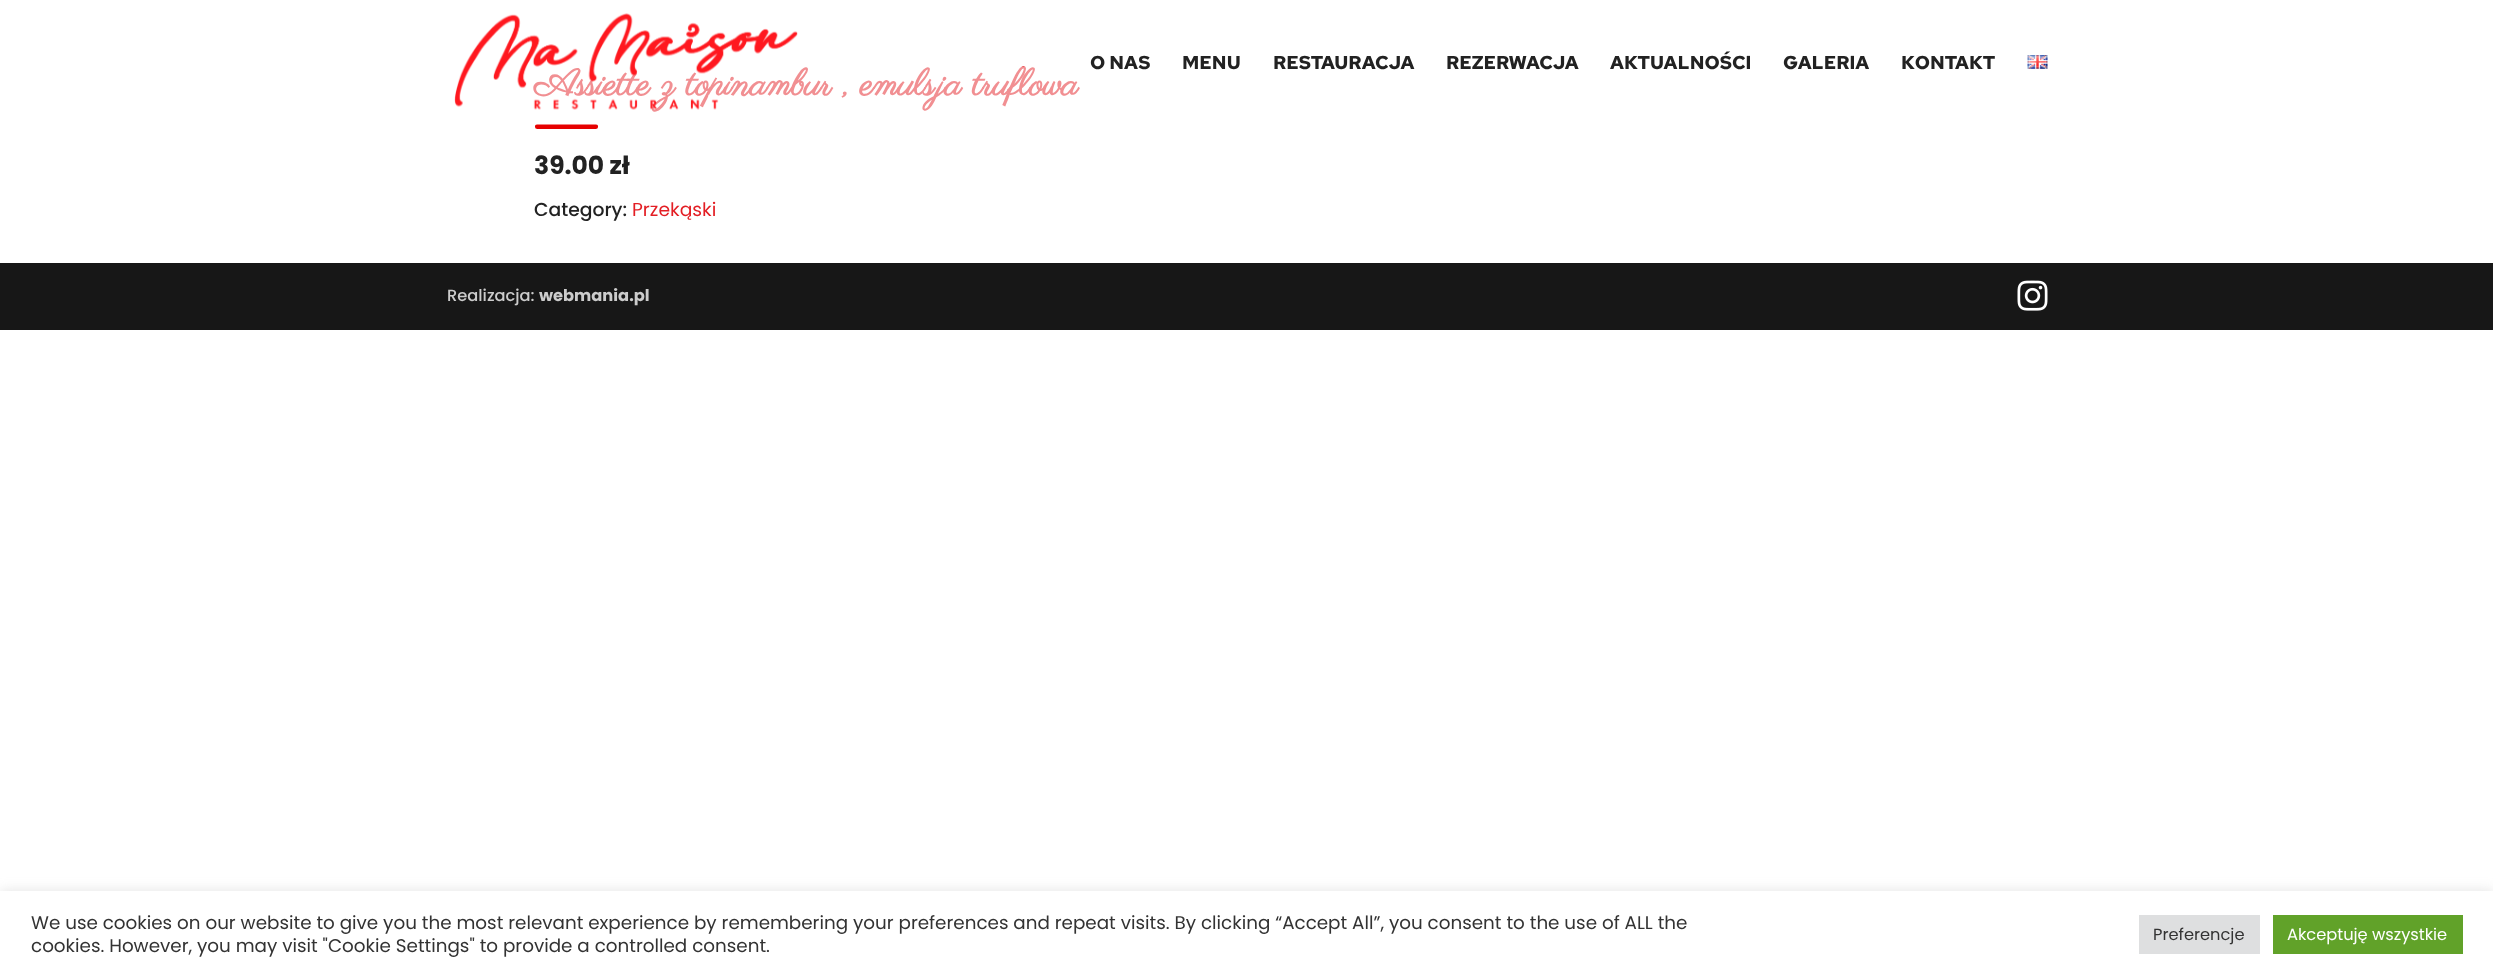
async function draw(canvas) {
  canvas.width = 2493;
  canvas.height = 977;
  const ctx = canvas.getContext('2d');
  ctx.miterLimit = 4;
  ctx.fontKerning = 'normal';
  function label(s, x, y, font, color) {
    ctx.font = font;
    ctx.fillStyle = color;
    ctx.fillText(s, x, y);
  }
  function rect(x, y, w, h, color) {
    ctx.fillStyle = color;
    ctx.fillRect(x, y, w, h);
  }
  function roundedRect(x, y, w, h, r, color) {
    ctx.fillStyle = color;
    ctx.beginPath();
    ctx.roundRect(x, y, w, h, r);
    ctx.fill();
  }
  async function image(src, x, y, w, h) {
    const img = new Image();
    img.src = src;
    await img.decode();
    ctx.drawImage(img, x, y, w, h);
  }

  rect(0, 0, 2493, 977, '#fff');
  label('Assiette z topinambur , emulsja truflowa', 534, 95, 'bold 37.5px Parisienne', '#e31e24');
  roundedRect(535, 124, 63, 5, 2.5, '#e60000');
  rect(533, 67, 547, 58, '#ffffff80');
  await image('assets/img1.png', 454, 13, 344, 97);
  label('O NAS', 1090, 69, 'bold 18.75px Red Hat Text', '#222');
  label('MENU', 1182, 69, 'bold 18.75px Red Hat Text', '#222');
  label('RESTAURACJA', 1273, 69, 'bold 18.75px Red Hat Text', '#222');
  label('REZERWACJA', 1446, 69, 'bold 18.75px Red Hat Text', '#222');
  label('AKTUALNOŚCI', 1610, 69, 'bold 18.75px Red Hat Text', '#222');
  label('GALERIA', 1783, 69, 'bold 18.75px Red Hat Text', '#222');
  label('KONTAKT', 1901, 69, 'bold 18.75px Red Hat Text', '#222');
  await image('assets/img2.png', 2027, 55, 21, 14);
  label('39.00 zł', 534, 174, 'bold 25px Poppins', '#222');
  label('Category:', 534, 216, '500 18.75px Poppins', '#222');
  label('Przekąski', 632, 216, '18.75px Poppins', '#e31e24');
  rect(0, 263, 2493, 67, '#171717');
  label('Realizacja:', 447, 301, '500 16.25px Poppins', '#ccc');
  label('webmania.pl', 539, 301, 'bold 16.25px Poppins', '#ccc');
  await image('assets/img3.png', 2017, 280, 31, 31);
  ctx.fillStyle = '#acabab4d';
  ctx.filter = 'blur(6px)';
  ctx.beginPath();
  ctx.rect(0, 890, 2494, 86);
  ctx.fill();
  ctx.filter = 'none';
  rect(0, 891, 2493, 86, '#fff');
  label('We use cookies on our website to give you the most relevant experience by remembering your preferences and repeat visits. By clicking “Accept All”, you consent to the use of ALL the', 31, 929, '18.33px Poppins', '#333');
  label('cookies. However, you may visit "Cookie Settings" to provide a controlled consent.', 31, 952, '18.33px Poppins', '#333');
  rect(2139, 915, 121, 39, '#dedfe0');
  label('Preferencje', 2153, 940, '16.25px Poppins', '#333');
  rect(2273, 915, 190, 39, '#61a229');
  label('Akceptuję wszystkie', 2287, 940, '16.25px Poppins', '#fff');
}

draw(document.querySelector('canvas'));
